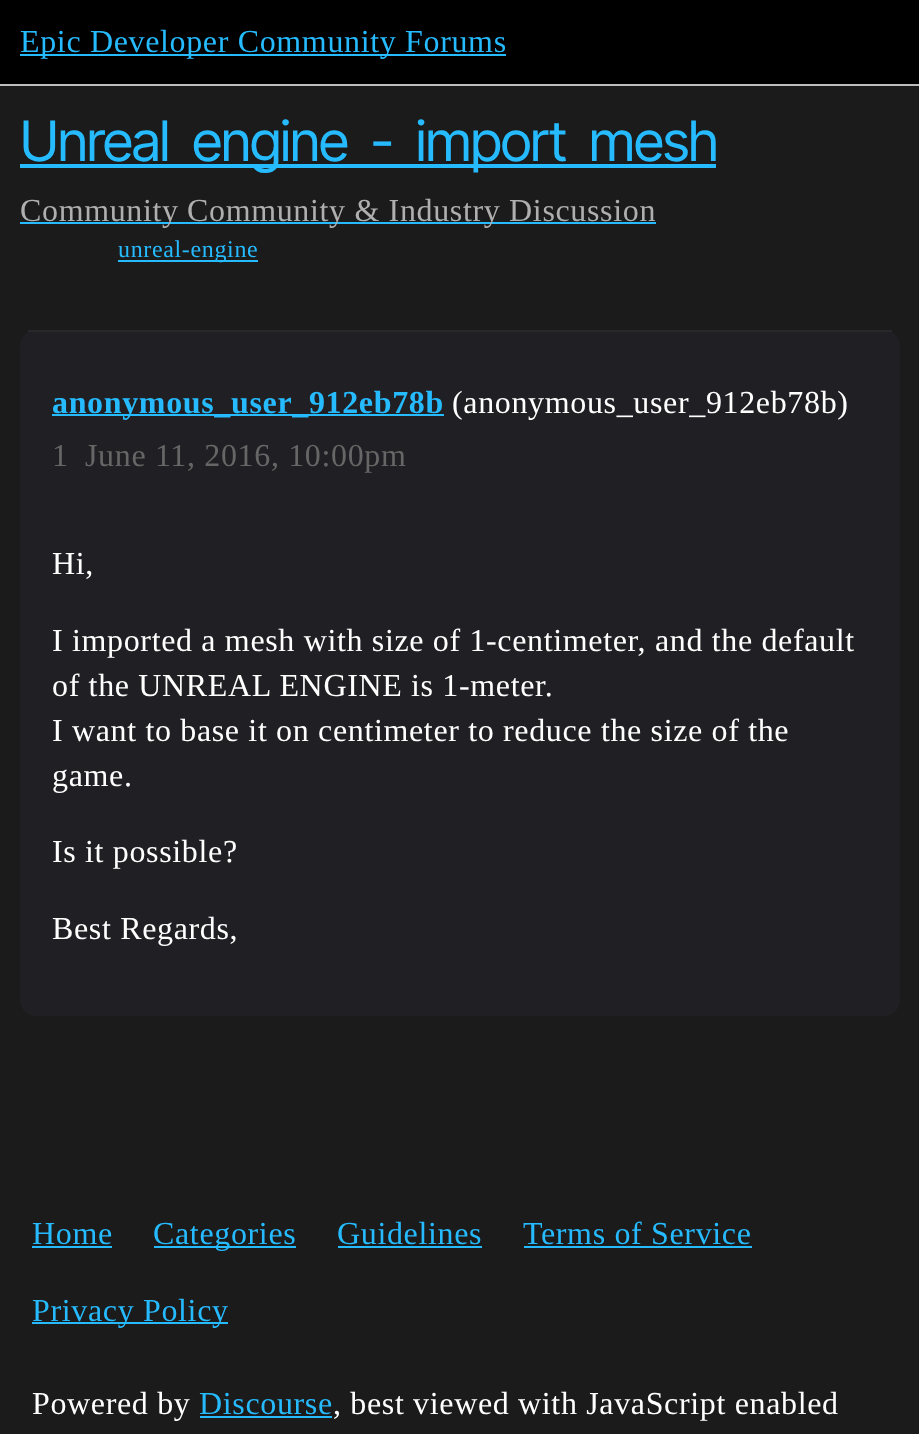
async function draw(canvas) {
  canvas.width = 919;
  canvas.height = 1434;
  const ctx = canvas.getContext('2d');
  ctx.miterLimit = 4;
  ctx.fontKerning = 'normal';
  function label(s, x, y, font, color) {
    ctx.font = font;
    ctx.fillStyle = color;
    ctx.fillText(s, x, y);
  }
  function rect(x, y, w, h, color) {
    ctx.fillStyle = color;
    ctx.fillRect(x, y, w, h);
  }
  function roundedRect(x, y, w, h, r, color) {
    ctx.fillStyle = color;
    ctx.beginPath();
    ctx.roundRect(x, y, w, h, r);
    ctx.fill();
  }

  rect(0, 0, 919, 1434, '#1b1b1b');
  rect(0, 0, 919, 84, '#000');
  rect(0, 84, 919, 2, '#bdbdbd');
  rect(20, 54, 486, 2, '#26bbff');
  ctx.letterSpacing = '0.65px';
  label('Epic Developer Community Forums', 20, 52, '32px Liberation Serif', '#26bbff');
  rect(20, 164, 696, 4, '#26bbff');
  ctx.letterSpacing = '-1px';
  ctx.wordSpacing = '11px';
  label('Unreal engine - import mesh', 20, 161, '55.75px Inter Tight', '#26bbff');
  rect(20, 222, 636, 2, '#26bbff');
  ctx.letterSpacing = '0.65px';
  ctx.wordSpacing = '0px';
  label('Community', 20, 221, '32px Liberation Serif', '#afafb0');
  label('Community & Industry Discussion', 187, 221, '32px Liberation Serif', '#afafb0');
  rect(118, 260, 140, 2, '#26bbff');
  label('unreal-engine', 118, 257, '24px Liberation Serif', '#26bbff');
  roundedRect(20, 330, 880, 686, 16, '#202024');
  rect(28, 330, 864, 2, '#28282c');
  rect(52, 414, 392, 2, '#26bbff');
  label('anonymous_user_912eb78b', 52, 413, 'bold 32px Liberation Serif', '#26bbff');
  label('(anonymous_user_912eb78b)', 452, 413, '32px Liberation Serif', '#fff');
  label('1', 52, 466, '32px Liberation Serif', '#666');
  label('June 11, 2016, 10:00pm', 85, 466, '32px Liberation Serif', '#666');
  label('Hi,', 52, 574, '32px Liberation Serif', '#fff');
  label('I imported a mesh with size of 1-centimeter, and the default', 52, 651, '32px Liberation Serif', '#fff');
  label('of the UNREAL ENGINE is 1-meter.', 52, 696, '32px Liberation Serif', '#fff');
  label('I want to base it on centimeter to reduce the size of the', 52, 741, '32px Liberation Serif', '#fff');
  label('game.', 52, 786, '32px Liberation Serif', '#fff');
  label('Is it possible?', 52, 862, '32px Liberation Serif', '#fff');
  label('Best Regards,', 52, 939, '32px Liberation Serif', '#fff');
  label('Home', 32, 1244, '32px Liberation Serif', '#26bbff');
  rect(32, 1246, 80, 2, '#26bbff');
  rect(154, 1246, 142, 2, '#26bbff');
  label('Categories', 153, 1244, '32px Liberation Serif', '#26bbff');
  label('Guidelines', 337, 1244, '32px Liberation Serif', '#26bbff');
  rect(338, 1246, 144, 2, '#26bbff');
  label('Terms of Service', 523, 1244, '32px Liberation Serif', '#26bbff');
  rect(524, 1246, 228, 2, '#26bbff');
  rect(32, 1322, 196, 2, '#26bbff');
  label('Privacy Policy', 32, 1321, '32px Liberation Serif', '#26bbff');
  label('Powered by', 32, 1414, '32px Liberation Serif', '#fff');
  label('Discourse', 199, 1414, '32px Liberation Serif', '#26bbff');
  rect(200, 1416, 132, 2, '#26bbff');
  label(', best viewed with JavaScript enabled', 333, 1414, '32px Liberation Serif', '#fff');
}

draw(document.querySelector('canvas'));
